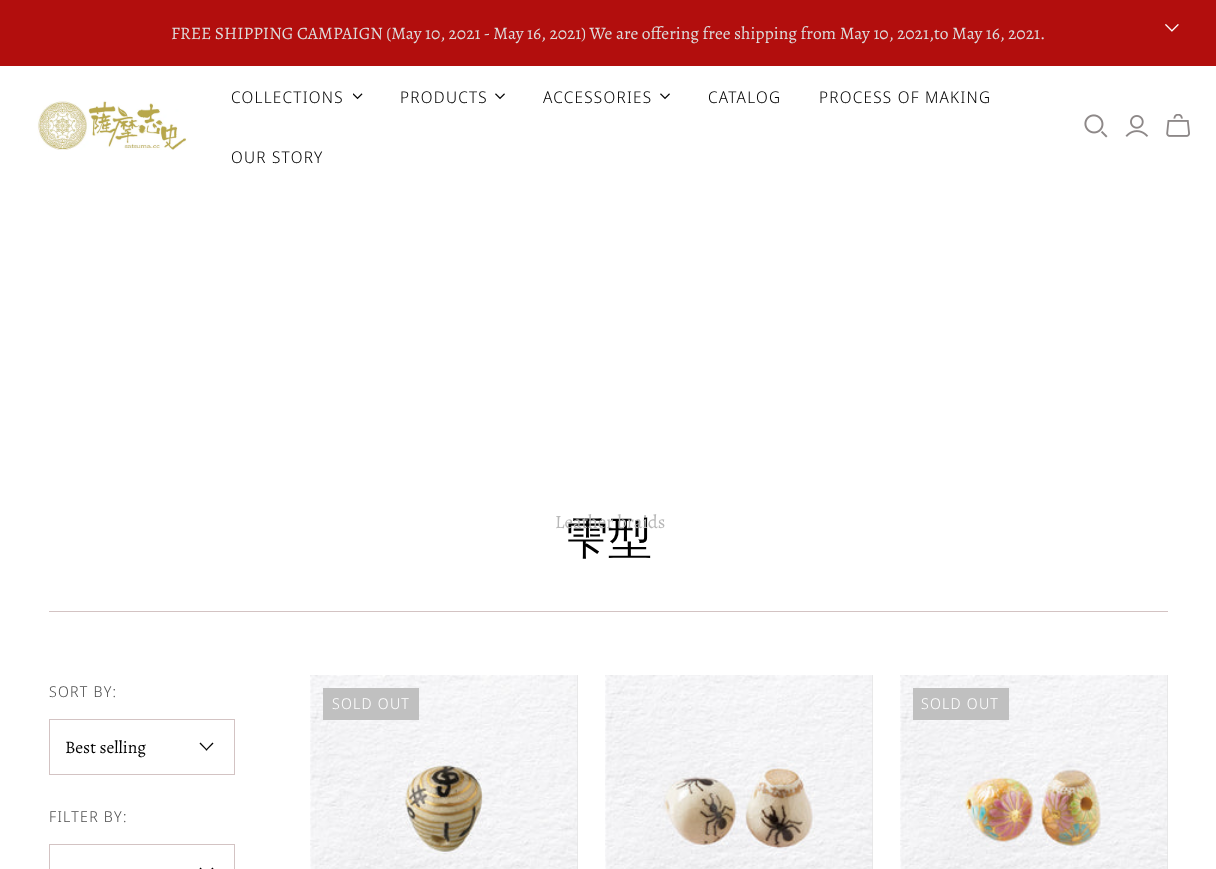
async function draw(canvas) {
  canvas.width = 1216;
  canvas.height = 869;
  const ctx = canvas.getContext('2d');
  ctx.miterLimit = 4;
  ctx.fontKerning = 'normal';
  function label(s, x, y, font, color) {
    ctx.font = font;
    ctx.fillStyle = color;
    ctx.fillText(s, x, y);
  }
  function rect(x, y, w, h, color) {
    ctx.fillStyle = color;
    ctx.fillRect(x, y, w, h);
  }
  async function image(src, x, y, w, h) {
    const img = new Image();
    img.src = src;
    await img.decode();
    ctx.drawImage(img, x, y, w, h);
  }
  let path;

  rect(0, 0, 1216, 869, '#fff');
  rect(0, 0, 1216, 66, '#b20e0d');
  label('FREE SHIPPING CAMPAIGN (May 10, 2021 - May 16, 2021) We are offering free shipping from May 10, 2021,to May 16, 2021.', 171, 39, '17.5px Alegreya', '#ddd');
  await image('assets/img1.png', 1165, 24, 14, 8);
  await image('assets/img2.png', 37, 100, 150, 50);
  ctx.letterSpacing = '1.25px';
  label('COLLECTIONS', 231, 103, '300 16.25px Noto Sans Display', '#000');
  await image('assets/img3.png', 353, 93, 10, 7);
  label('PRODUCTS', 400, 103, '300 16.25px Noto Sans Display', '#000');
  await image('assets/img4.png', 495, 93, 10, 7);
  label('ACCESSORIES', 543, 103, '300 16.25px Noto Sans Display', '#000');
  await image('assets/img4.png', 660, 93, 10, 7);
  ctx.letterSpacing = '0px';
  label('雫型', 564, 553, '500 44px WenQuanYi Zen Hei', '#000');
  label('Leather braids', 555, 528, '18.75px Alegreya', '#b8b8b8');
  ctx.letterSpacing = '1.25px';
  label('CATALOG', 708, 103, '300 16.25px Noto Sans Display', '#000');
  label('PROCESS OF MAKING', 819, 103, '300 16.25px Noto Sans Display', '#000');
  label('OUR STORY', 231, 163, '300 16.25px Noto Sans Display', '#000');
  await image('assets/img5.png', 1084, 114, 24, 24);
  await image('assets/img6.png', 1125, 115, 24, 22);
  await image('assets/img7.png', 1166, 114, 24, 23);
  rect(49, 611, 1119, 1, '#d3c3c3');
  label('SORT BY:', 49, 697, '300 15px Noto Sans Display', '#4e4e4e');
  ctx.strokeStyle = '#d3c3c3';
  ctx.strokeRect(49.5, 719.5, 185, 55);
  ctx.letterSpacing = '0px';
  label('Best selling', 65, 753, '17.5px Alegreya', '#000');
  ctx.fillStyle = '#030303';
  path = new Path2D('M205.5 750L212.5 742.5L213.5 743.5L206.5 750.5Z');
  ctx.fill(path);
  path = new Path2D('M199.5 743.5L200.5 742.5L207.5 750L206.5 750.5Z');
  ctx.fill(path);
  ctx.letterSpacing = '1.25px';
  label('FILTER BY:', 49, 822, '300 15px Noto Sans Display', '#4e4e4e');
  ctx.strokeRect(49.5, 844.5, 185, 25);
  ctx.fillStyle = '#030303';
  path = new Path2D('M205.5 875L212.5 867.5L213.5 868.5L206.5 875.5ZM199.5 868.5L200.5 867.5L207.5 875L206.5 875.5Z');
  ctx.fill(path);
  rect(577, 675, 1, 194, '#e5e5e5');
  await image('assets/img8.png', 310, 675, 268, 194);
  rect(323, 688, 96, 32, '#c0c0c0');
  label('SOLD OUT', 332, 709, '300 15px Noto Sans Display', '#fff');
  rect(872, 675, 1, 194, '#e5e5e5');
  await image('assets/img9.png', 605, 675, 268, 194);
  rect(1167, 675, 1, 194, '#e5e5e5');
  await image('assets/img10.png', 900, 675, 268, 194);
  rect(913, 688, 96, 32, '#c0c0c0');
  label('SOLD OUT', 921, 709, '300 15px Noto Sans Display', '#fff');
}

draw(document.querySelector('canvas'));
